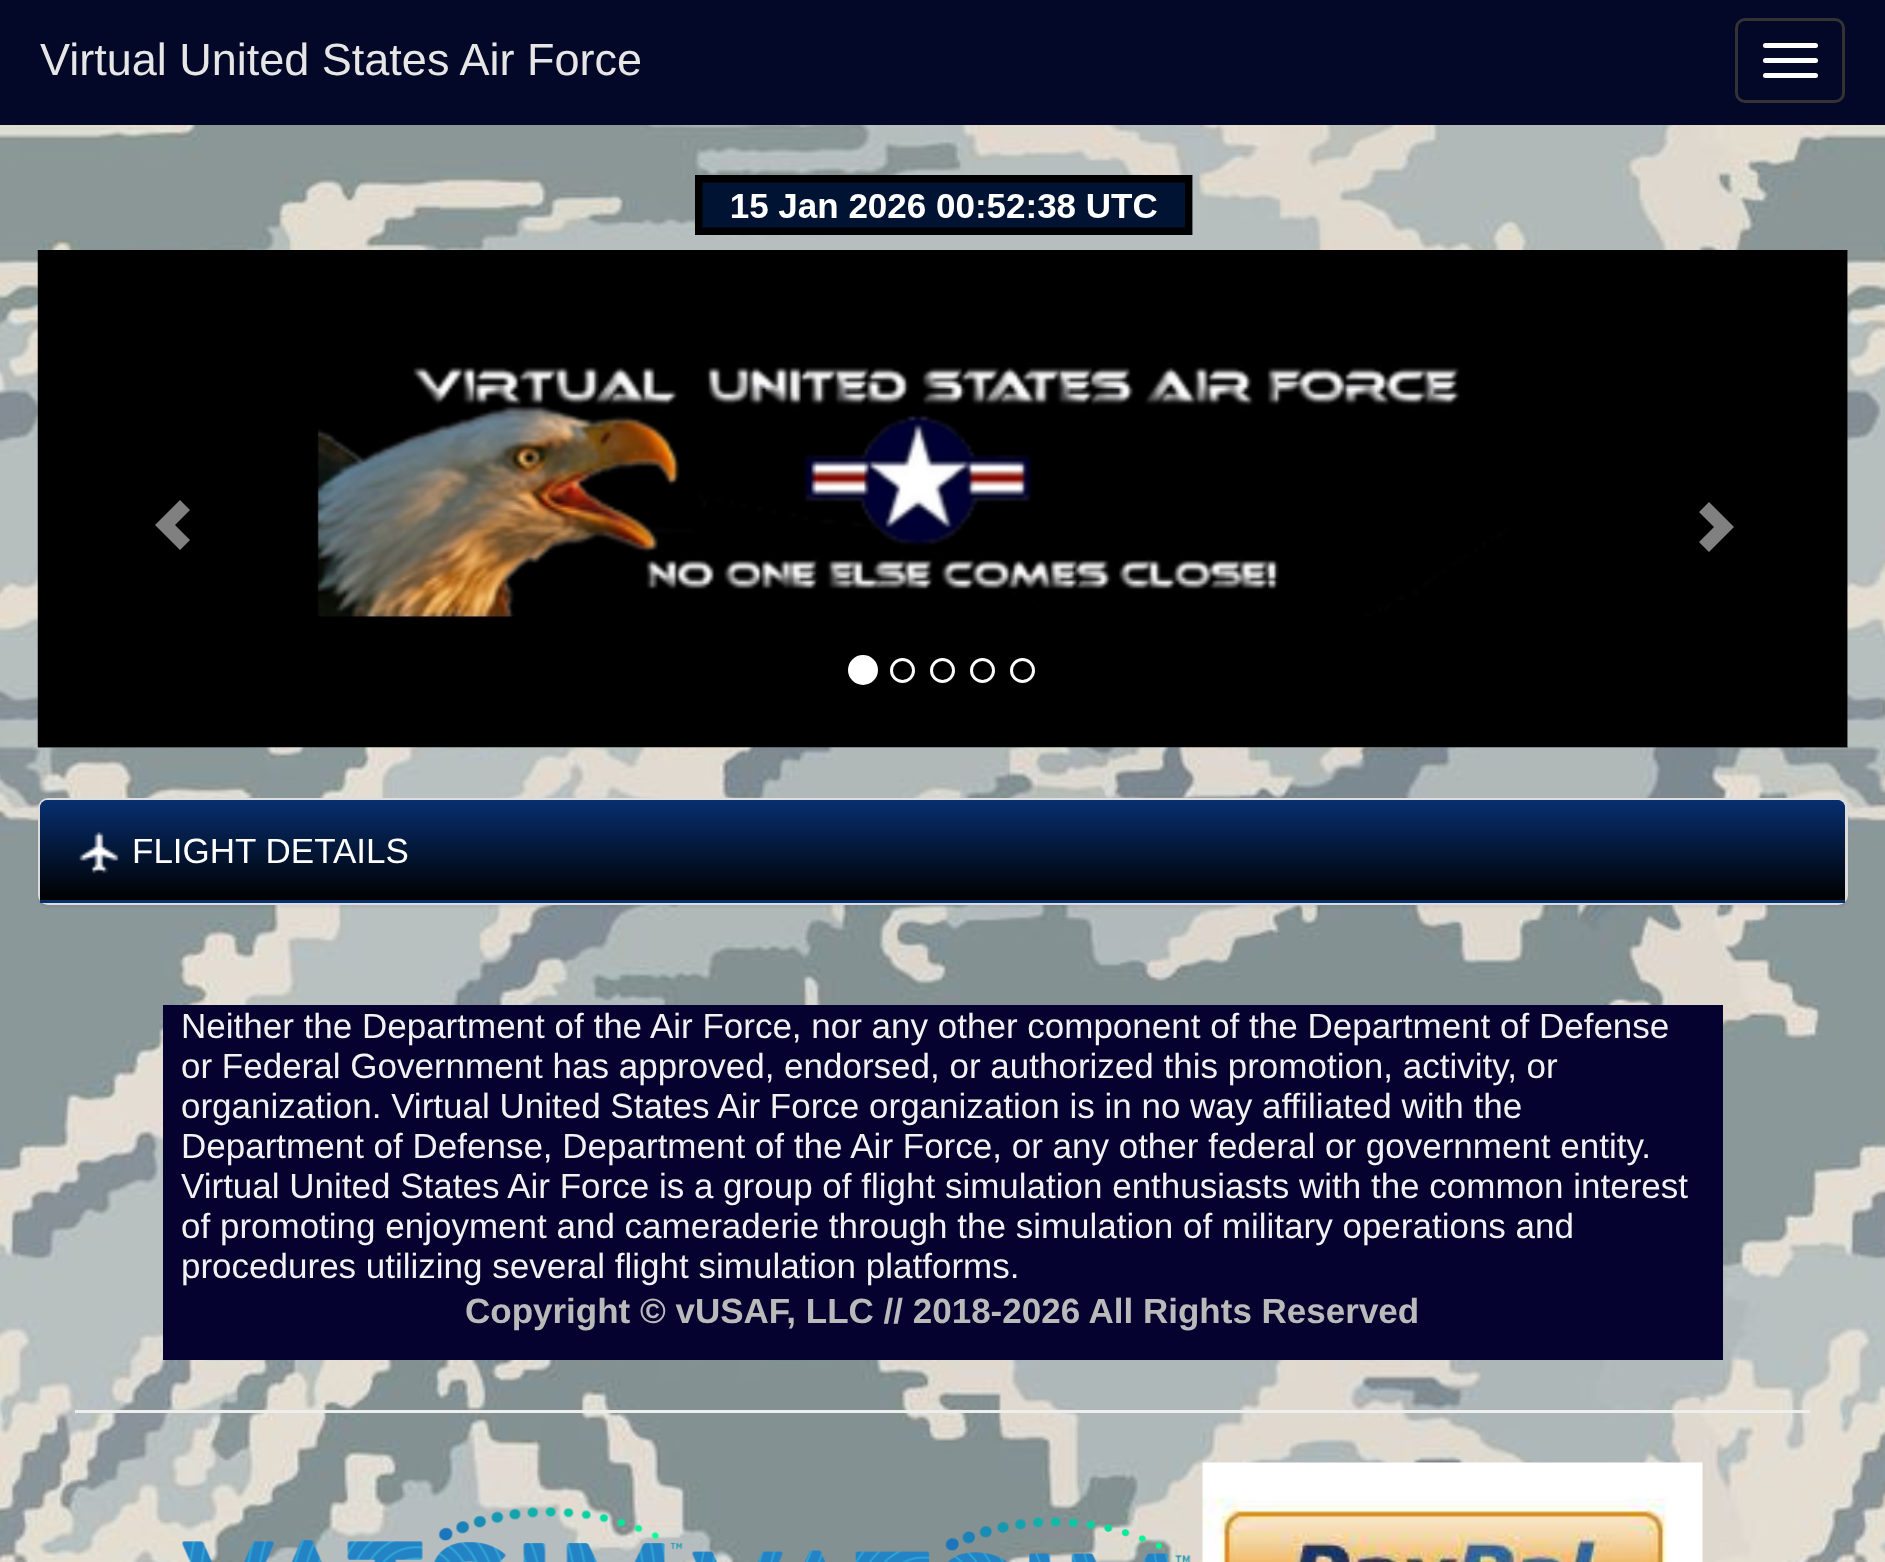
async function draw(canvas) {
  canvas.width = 1885;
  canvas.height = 1562;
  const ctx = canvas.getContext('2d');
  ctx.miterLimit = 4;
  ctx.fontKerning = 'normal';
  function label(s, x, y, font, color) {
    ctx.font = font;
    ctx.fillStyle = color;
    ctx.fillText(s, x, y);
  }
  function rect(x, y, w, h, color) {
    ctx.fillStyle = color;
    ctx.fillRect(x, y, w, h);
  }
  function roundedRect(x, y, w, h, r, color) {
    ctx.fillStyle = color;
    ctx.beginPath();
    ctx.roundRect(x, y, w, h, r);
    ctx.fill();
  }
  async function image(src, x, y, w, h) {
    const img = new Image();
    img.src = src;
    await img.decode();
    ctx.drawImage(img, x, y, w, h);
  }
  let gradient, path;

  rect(0, 0, 1885, 1562, '#fff');
  await image('assets/img1.png', 0, 125, 1885, 1437);
  rect(0, 0, 1885, 125, '#030828');
  label('Virtual United States Air Force', 40, 75, '45px Liberation Sans', '#e6e6e6');
  ctx.beginPath();
  ctx.roundRect(1736.5, 19.5, 107, 82, 8.5);
  ctx.strokeStyle = '#333';
  ctx.lineWidth = 3;
  ctx.stroke();
  roundedRect(1763, 43, 55, 5, 2.5, '#fff');
  roundedRect(1763, 58, 55, 5, 2.5, '#fff');
  roundedRect(1763, 73, 55, 5, 2.5, '#fff');
  await image('assets/img2.png', 695, 175, 498, 60);
  await image('assets/img3.png', 37, 250, 1811, 498);
  gradient = ctx.createLinearGradient(37, 499, 310, 499);
  gradient.addColorStop(0, '#00000040');
  gradient.addColorStop(1, '#00000000');
  ctx.fillStyle = gradient;
  ctx.fillRect(38, 747, 248, 1);
  ctx.fillStyle = '#808080';
  path = new Path2D('M155 525L180 550L190 540L175 525L190 510L180 500Z');
  ctx.fill(path);
  ctx.fillStyle = '#fff';
  ctx.beginPath();
  ctx.arc(863, 670, 13.5, 0, 2 * Math.PI);
  ctx.fill();
  ctx.strokeStyle = '#fff';
  ctx.stroke();
  ctx.beginPath();
  ctx.arc(902.5, 670.5, 11, 0, 2 * Math.PI);
  ctx.stroke();
  ctx.beginPath();
  ctx.arc(942.5, 670.5, 11, 0, 2 * Math.PI);
  ctx.stroke();
  ctx.beginPath();
  ctx.arc(982.5, 670.5, 11, 0, 2 * Math.PI);
  ctx.stroke();
  ctx.beginPath();
  ctx.arc(1022.5, 670.5, 11, 0, 2 * Math.PI);
  ctx.stroke();
  gradient = ctx.createLinearGradient(1575, 499, 1848, 499);
  gradient.addColorStop(0, '#00000000');
  gradient.addColorStop(1, '#00000040');
  ctx.fillStyle = gradient;
  ctx.fillRect(1599, 250, 249, 498);
  ctx.fillStyle = '#808080';
  path = new Path2D('M1699 542L1714 527L1699 512L1709 502L1734 527L1709 552Z');
  ctx.fill(path);
  ctx.fillStyle = '#0000000d';
  ctx.filter = 'blur(1px)';
  ctx.beginPath();
  ctx.roundRect(38, 800, 1810, 108, 10);
  ctx.fill();
  ctx.filter = 'none';
  ctx.beginPath();
  ctx.roundRect(39.5, 799.5, 1807, 104, 8.5);
  ctx.strokeStyle = '#ddd';
  ctx.stroke();
  ctx.fillStyle = '#072f70';
  ctx.beginPath();
  ctx.roundRect(40, 800, 1805, 103, [8, 8, 0, 0]);
  ctx.fill();
  gradient = ctx.createLinearGradient(943, 800, 943, 900);
  gradient.addColorStop(0, '#072f70');
  gradient.addColorStop(1, '#000');
  ctx.fillStyle = gradient;
  ctx.beginPath();
  ctx.roundRect(40, 800, 1805, 100, [8, 8, 0, 0]);
  ctx.fill();
  await image('assets/img4.png', 79, 831, 40, 43);
  label('FLIGHT DETAILS', 132, 863, '35px Liberation Sans', '#fff');
  rect(163, 1005, 1560, 355, '#060230');
  label('Neither the Department of the Air Force, nor any other component of the Department of Defense', 181, 1038, '35px Liberation Sans', '#f2f2f2');
  label('or Federal Government has approved, endorsed, or authorized this promotion, activity, or', 181, 1078, '35px Liberation Sans', '#f2f2f2');
  label('organization. Virtual United States Air Force organization is in no way affiliated with the', 181, 1118, '35px Liberation Sans', '#f2f2f2');
  label('Department of Defense, Department of the Air Force, or any other federal or government entity.', 181, 1158, '35px Liberation Sans', '#f2f2f2');
  label('Virtual United States Air Force is a group of flight simulation enthusiasts with the common interest', 181, 1198, '35px Liberation Sans', '#f2f2f2');
  label('of promoting enjoyment and cameraderie through the simulation of military operations and', 181, 1238, '35px Liberation Sans', '#f2f2f2');
  label('procedures utilizing several flight simulation platforms.', 181, 1278, '35px Liberation Sans', '#f2f2f2');
  label('Copyright © vUSAF, LLC // 2018-2026 All Rights Reserved', 465, 1323, 'bold 35px Liberation Sans', '#bababa');
  rect(75, 1410, 1735, 3, '#eee');
  await image('assets/img5.png', 182, 1507, 501, 55);
  await image('assets/img6.png', 692, 1517, 499, 45);
  await image('assets/img7.png', 1202, 1462, 501, 100);
}

draw(document.querySelector('canvas'));
